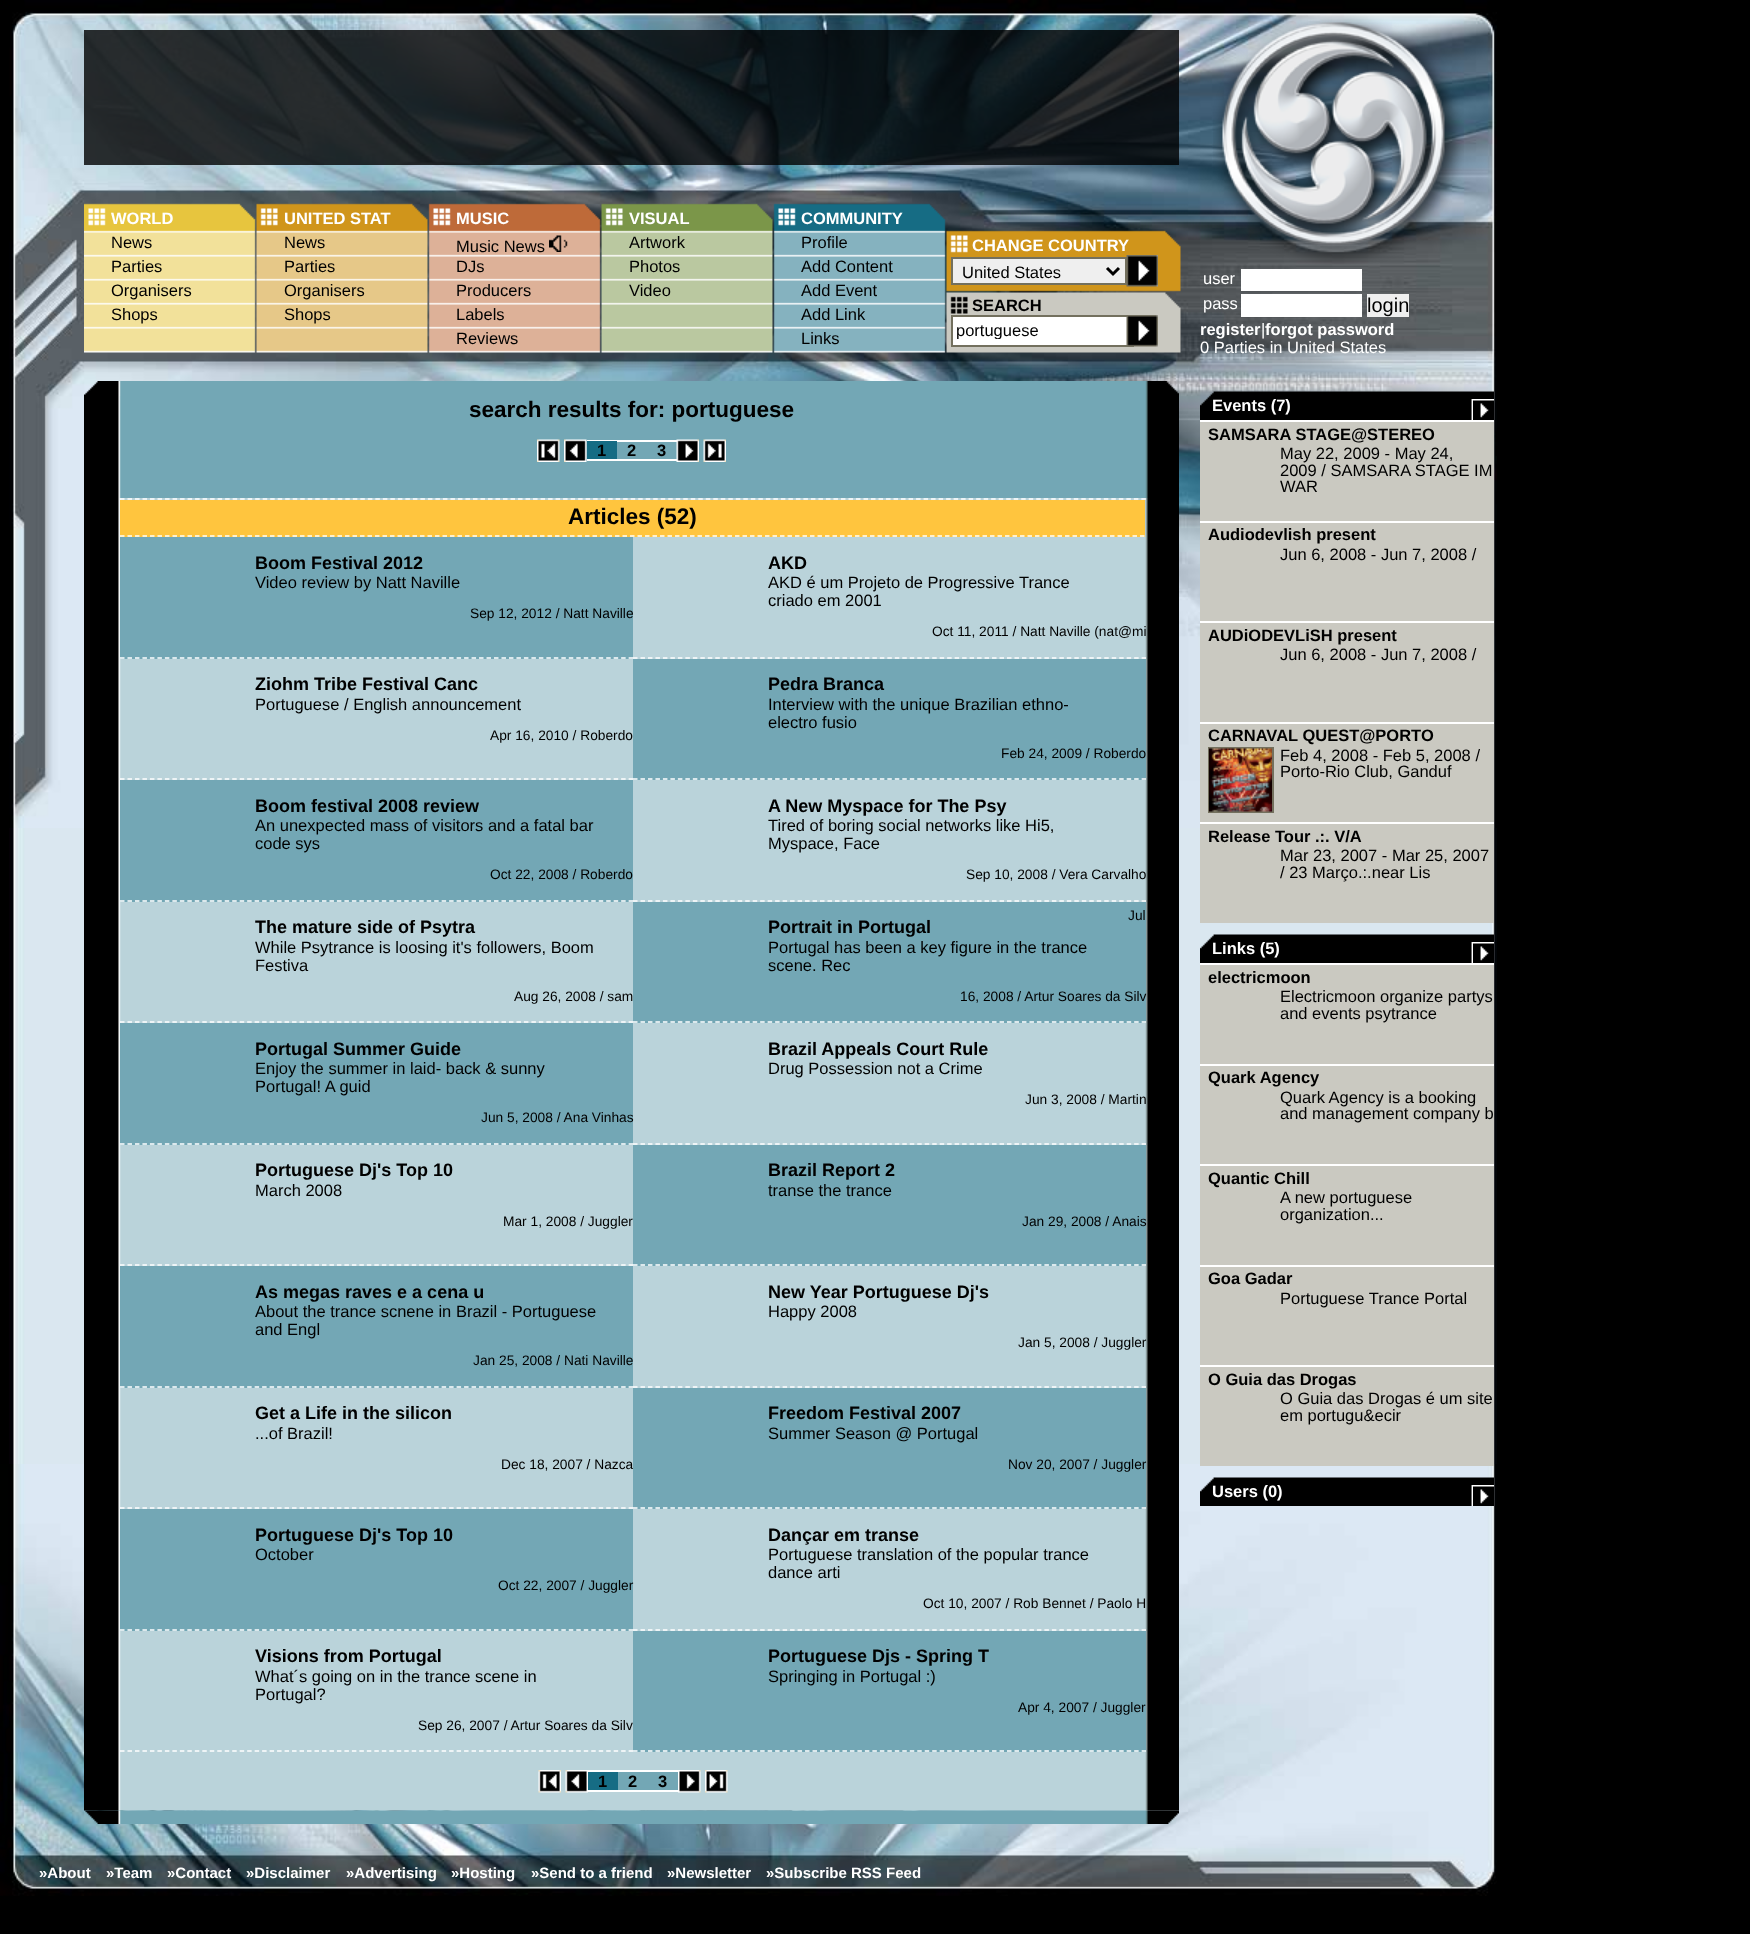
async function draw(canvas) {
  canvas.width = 1750;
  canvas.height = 1934;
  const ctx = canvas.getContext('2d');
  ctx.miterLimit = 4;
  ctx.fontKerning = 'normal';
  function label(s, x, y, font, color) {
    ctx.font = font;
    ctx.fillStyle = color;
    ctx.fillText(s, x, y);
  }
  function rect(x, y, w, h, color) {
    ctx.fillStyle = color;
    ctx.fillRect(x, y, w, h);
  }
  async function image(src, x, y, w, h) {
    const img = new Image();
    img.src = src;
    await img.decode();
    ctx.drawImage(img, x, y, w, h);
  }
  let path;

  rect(0, 0, 1750, 1934, '#000');
  await image('assets/img1.png', 9, 828, 1488, 636);
  await image('assets/img2.png', 9, 0, 1488, 828);
  rect(84, 30, 1095, 135, '#000000cc');
  await image('assets/img3.png', 1213, 14, 251, 251);
  await image('assets/img4.png', 84, 203, 1097, 150);
  label('WORLD', 111, 224, 'bold 16.5px Liberation Sans', '#fff');
  label('News', 111, 248, '16.5px Liberation Sans', '#000');
  label('Parties', 111, 272, '16.5px Liberation Sans', '#000');
  label('Organisers', 111, 296, '16.5px Liberation Sans', '#000');
  label('Shops', 111, 320, '16.5px Liberation Sans', '#000');
  label('UNITED STAT', 284, 224, 'bold 16.5px Liberation Sans', '#fff');
  label('News', 284, 248, '16.5px Liberation Sans', '#000');
  label('Parties', 284, 272, '16.5px Liberation Sans', '#000');
  label('Organisers', 284, 296, '16.5px Liberation Sans', '#000');
  label('Shops', 284, 320, '16.5px Liberation Sans', '#000');
  label('MUSIC', 456, 224, 'bold 16.5px Liberation Sans', '#fff');
  label('Music News', 456, 252, '16.5px Liberation Sans', '#000');
  await image('assets/img5.png', 549, 235, 19, 17);
  label('DJs', 456, 272, '16.5px Liberation Sans', '#000');
  label('Producers', 456, 296, '16.5px Liberation Sans', '#000');
  label('Labels', 456, 320, '16.5px Liberation Sans', '#000');
  label('Reviews', 456, 344, '16.5px Liberation Sans', '#000');
  label('VISUAL', 629, 224, 'bold 16.5px Liberation Sans', '#fff');
  label('Artwork', 629, 248, '16.5px Liberation Sans', '#000');
  label('Photos', 629, 272, '16.5px Liberation Sans', '#000');
  label('Video', 629, 296, '16.5px Liberation Sans', '#000');
  label('COMMUNITY', 801, 224, 'bold 16.5px Liberation Sans', '#fff');
  label('Profile', 801, 248, '16.5px Liberation Sans', '#000');
  label('Add Content', 801, 272, '16.5px Liberation Sans', '#000');
  label('Add Event', 801, 296, '16.5px Liberation Sans', '#000');
  label('Add Link', 801, 320, '16.5px Liberation Sans', '#000');
  label('Links', 801, 344, '16.5px Liberation Sans', '#000');
  label('CHANGE COUNTRY', 972, 251, 'bold 16.5px Liberation Sans', '#fff');
  ctx.fillStyle = '#efefef';
  ctx.beginPath();
  ctx.rect(952, 258, 174, 26);
  ctx.fill();
  ctx.strokeStyle = '#73705e';
  ctx.lineWidth = 2;
  ctx.stroke();
  path = new Path2D('M1107 268L1113 274L1119 268');
  ctx.strokeStyle = '#000';
  ctx.lineWidth = 3;
  ctx.stroke(path);
  label('United States', 962, 278, '16.5px Liberation Sans', '#000');
  await image('assets/img6.png', 1126, 255, 32, 32);
  label('SEARCH', 972, 311, 'bold 16.5px Liberation Sans', '#000');
  rect(953, 317, 174, 28, '#fff');
  ctx.strokeStyle = '#73705e';
  ctx.lineWidth = 2;
  ctx.strokeRect(952, 316, 181, 30);
  ctx.save();
  ctx.beginPath();
  ctx.rect(956, 321, 174, 18);
  ctx.clip();
  label('portuguese', 956, 336, '16.5px Liberation Sans', '#000');
  ctx.restore();
  await image('assets/img7.png', 1126, 315, 32, 32);
  label('user', 1203, 284, '16.5px Liberation Sans', '#fff');
  rect(1241, 269, 121, 22, '#fff');
  label('pass', 1203, 309, '16.5px Liberation Sans', '#fff');
  rect(1241, 294, 121, 23, '#fff');
  rect(1367, 294, 42, 23, '#efefef');
  label('login', 1367, 312, '20px Liberation Sans', '#000');
  label('register forgot password', 1200, 335, 'bold 16.5px Liberation Sans', '#fff');
  label('|', 1261, 335, '16.5px Liberation Sans', '#fff');
  label('0 Parties in United States', 1200, 353, '16.5px Liberation Sans', '#fff');
  await image('assets/img8.png', 84, 381, 1095, 15);
  await image('assets/img9.png', 84, 396, 1095, 102);
  label('search results for: portuguese', 469, 417, 'bold 22.5px Liberation Sans', '#000');
  await image('assets/img10.png', 537, 439, 23, 23);
  await image('assets/img11.png', 564, 439, 23, 23);
  rect(587, 440, 30, 1, '#fff');
  rect(587, 459, 90, 2, '#fff');
  rect(587, 441, 30, 18, '#166c84');
  label('1', 597, 456, 'bold 16.5px Liberation Sans', '#000');
  rect(617, 440, 60, 2, '#fff');
  label('2', 627, 456, 'bold 16.5px Liberation Sans', '#000');
  label('3', 657, 456, 'bold 16.5px Liberation Sans', '#000');
  await image('assets/img12.png', 676, 439, 23, 23);
  await image('assets/img13.png', 703, 439, 23, 23);
  await image('assets/img26.png', 0, 1464, 1497, 432);
  await image('assets/img14.png', 84, 498, 1095, 1313);
  path = new Path2D('M120 499H1146');
  ctx.strokeStyle = '#fff';
  ctx.lineWidth = 1.5;
  ctx.setLineDash([4.5, 3.01]);
  ctx.stroke(path);
  rect(120, 500, 1025, 37, '#ffc53e');
  path = new Path2D('M120 536H1144.5');
  ctx.setLineDash([4.5, 3]);
  ctx.stroke(path);
  label('Articles (52)', 568, 524, 'bold 22.5px Liberation Sans', '#000');
  rect(120, 537, 513, 122, '#73a7b5');
  path = new Path2D('M120 658H633');
  ctx.setLineDash([4.5, 2.98]);
  ctx.stroke(path);
  label('Boom Festival 2012', 255, 569, 'bold 18px Liberation Sans', '#000');
  label('Video review by Natt Naville', 255, 588, '16.5px Liberation Sans', '#000');
  label('Sep 12, 2012 / Natt Naville', 470, 618, '13.75px Liberation Sans', '#000');
  path = new Path2D('M633 658H1146');
  ctx.stroke(path);
  label('AKD', 768, 569, 'bold 18px Liberation Sans', '#000');
  label('AKD é um Projeto de Progressive Trance', 768, 588, '16.5px Liberation Sans', '#000');
  label('criado em 2001', 768, 606, '16.5px Liberation Sans', '#000');
  label('Oct 11, 2011 / Natt Naville (nat@mi', 932, 636, '13.75px Liberation Sans', '#000');
  path = new Path2D('M120 779H633');
  ctx.stroke(path);
  label('Ziohm Tribe Festival Canc', 255, 690, 'bold 18px Liberation Sans', '#000');
  label('Portuguese / English announcement', 255, 710, '16.5px Liberation Sans', '#000');
  label('Apr 16, 2010 / Roberdo', 490, 740, '13.75px Liberation Sans', '#000');
  rect(633, 659, 513, 121, '#73a7b5');
  path = new Path2D('M633 779H1146');
  ctx.stroke(path);
  label('Pedra Branca', 768, 690, 'bold 18px Liberation Sans', '#000');
  label('Interview with the unique Brazilian ethno-', 768, 710, '16.5px Liberation Sans', '#000');
  label('electro fusio', 768, 728, '16.5px Liberation Sans', '#000');
  label('Feb 24, 2009 / Roberdo', 1001, 758, '13.75px Liberation Sans', '#000');
  rect(120, 780, 513, 122, '#73a7b5');
  path = new Path2D('M120 901H633');
  ctx.stroke(path);
  label('Boom festival 2008 review', 255, 812, 'bold 18px Liberation Sans', '#000');
  label('An unexpected mass of visitors and a fatal bar', 255, 831, '16.5px Liberation Sans', '#000');
  label('code sys', 255, 849, '16.5px Liberation Sans', '#000');
  label('Oct 22, 2008 / Roberdo', 490, 879, '13.75px Liberation Sans', '#000');
  path = new Path2D('M633 901H1146');
  ctx.stroke(path);
  label('A New Myspace for The Psy', 768, 812, 'bold 18px Liberation Sans', '#000');
  label('Tired of boring social networks like Hi5,', 768, 831, '16.5px Liberation Sans', '#000');
  label('Myspace, Face', 768, 849, '16.5px Liberation Sans', '#000');
  label('Sep 10, 2008 / Vera Carvalho', 966, 879, '13.75px Liberation Sans', '#000');
  path = new Path2D('M120 1022H633');
  ctx.stroke(path);
  label('The mature side of Psytra', 255, 933, 'bold 18px Liberation Sans', '#000');
  label('While Psytrance is loosing it\'s followers, Boom', 255, 953, '16.5px Liberation Sans', '#000');
  label('Festiva', 255, 971, '16.5px Liberation Sans', '#000');
  label('Aug 26, 2008 / sam', 514, 1001, '13.75px Liberation Sans', '#000');
  rect(633, 902, 513, 121, '#73a7b5');
  path = new Path2D('M633 1022H1146');
  ctx.stroke(path);
  label('Jul', 1128, 920, '13.75px Liberation Sans', '#000');
  label('16, 2008 / Artur Soares da Silv', 960, 1001, '13.75px Liberation Sans', '#000');
  label('Portrait in Portugal', 768, 933, 'bold 18px Liberation Sans', '#000');
  label('Portugal has been a key figure in the trance', 768, 953, '16.5px Liberation Sans', '#000');
  label('scene. Rec', 768, 971, '16.5px Liberation Sans', '#000');
  rect(120, 1023, 513, 122, '#73a7b5');
  path = new Path2D('M120 1144H633');
  ctx.stroke(path);
  label('Portugal Summer Guide', 255, 1055, 'bold 18px Liberation Sans', '#000');
  label('Enjoy the summer in laid- back & sunny', 255, 1074, '16.5px Liberation Sans', '#000');
  label('Portugal! A guid', 255, 1092, '16.5px Liberation Sans', '#000');
  label('Jun 5, 2008 / Ana Vinhas', 481, 1122, '13.75px Liberation Sans', '#000');
  path = new Path2D('M633 1144H1146');
  ctx.stroke(path);
  label('Brazil Appeals Court Rule', 768, 1055, 'bold 18px Liberation Sans', '#000');
  label('Drug Possession not a Crime', 768, 1074, '16.5px Liberation Sans', '#000');
  label('Jun 3, 2008 / Martin', 1025, 1104, '13.75px Liberation Sans', '#000');
  path = new Path2D('M120 1265H633');
  ctx.stroke(path);
  label('Portuguese Dj\'s Top 10', 255, 1176, 'bold 18px Liberation Sans', '#000');
  label('March 2008', 255, 1196, '16.5px Liberation Sans', '#000');
  label('Mar 1, 2008 / Juggler', 503, 1226, '13.75px Liberation Sans', '#000');
  rect(633, 1145, 513, 121, '#73a7b5');
  path = new Path2D('M633 1265H1146');
  ctx.stroke(path);
  label('Brazil Report 2', 768, 1176, 'bold 18px Liberation Sans', '#000');
  label('transe the trance', 768, 1196, '16.5px Liberation Sans', '#000');
  label('Jan 29, 2008 / Anais', 1022, 1226, '13.75px Liberation Sans', '#000');
  rect(120, 1266, 513, 122, '#73a7b5');
  path = new Path2D('M120 1387H633');
  ctx.stroke(path);
  label('As megas raves e a cena u', 255, 1298, 'bold 18px Liberation Sans', '#000');
  label('About the trance scnene in Brazil - Portuguese', 255, 1317, '16.5px Liberation Sans', '#000');
  label('and Engl', 255, 1335, '16.5px Liberation Sans', '#000');
  label('Jan 25, 2008 / Nati Naville', 473, 1365, '13.75px Liberation Sans', '#000');
  path = new Path2D('M633 1387H1146');
  ctx.stroke(path);
  label('New Year Portuguese Dj\'s', 768, 1298, 'bold 18px Liberation Sans', '#000');
  label('Happy 2008', 768, 1317, '16.5px Liberation Sans', '#000');
  label('Jan 5, 2008 / Juggler', 1018, 1347, '13.75px Liberation Sans', '#000');
  path = new Path2D('M120 1508H633');
  ctx.stroke(path);
  label('Get a Life in the silicon', 255, 1419, 'bold 18px Liberation Sans', '#000');
  label('...of Brazil!', 255, 1439, '16.5px Liberation Sans', '#000');
  label('Dec 18, 2007 / Nazca', 501, 1469, '13.75px Liberation Sans', '#000');
  rect(633, 1388, 513, 121, '#73a7b5');
  path = new Path2D('M633 1508H1146');
  ctx.stroke(path);
  label('Freedom Festival 2007', 768, 1419, 'bold 18px Liberation Sans', '#000');
  label('Summer Season @ Portugal', 768, 1439, '16.5px Liberation Sans', '#000');
  label('Nov 20, 2007 / Juggler', 1008, 1469, '13.75px Liberation Sans', '#000');
  rect(120, 1509, 513, 122, '#73a7b5');
  path = new Path2D('M120 1630H633');
  ctx.stroke(path);
  label('Portuguese Dj\'s Top 10', 255, 1541, 'bold 18px Liberation Sans', '#000');
  label('October', 255, 1560, '16.5px Liberation Sans', '#000');
  label('Oct 22, 2007 / Juggler', 498, 1590, '13.75px Liberation Sans', '#000');
  path = new Path2D('M633 1630H1146');
  ctx.stroke(path);
  label('Dançar em transe', 768, 1541, 'bold 18px Liberation Sans', '#000');
  label('Portuguese translation of the popular trance', 768, 1560, '16.5px Liberation Sans', '#000');
  label('dance arti', 768, 1578, '16.5px Liberation Sans', '#000');
  label('Oct 10, 2007 / Rob Bennet / Paolo H', 923, 1608, '13.75px Liberation Sans', '#000');
  path = new Path2D('M120 1751H633');
  ctx.stroke(path);
  label('Visions from Portugal', 255, 1662, 'bold 18px Liberation Sans', '#000');
  label('What´s going on in the trance scene in', 255, 1682, '16.5px Liberation Sans', '#000');
  label('Portugal?', 255, 1700, '16.5px Liberation Sans', '#000');
  label('Sep 26, 2007 / Artur Soares da Silv', 418, 1730, '13.75px Liberation Sans', '#000');
  rect(633, 1631, 513, 121, '#73a7b5');
  path = new Path2D('M633 1751H1146');
  ctx.stroke(path);
  label('Portuguese Djs - Spring T', 768, 1662, 'bold 18px Liberation Sans', '#000');
  label('Springing in Portugal :)', 768, 1682, '16.5px Liberation Sans', '#000');
  label('Apr 4, 2007 / Juggler', 1018, 1712, '13.75px Liberation Sans', '#000');
  await image('assets/img15.png', 538, 1770, 23, 23);
  await image('assets/img16.png', 565, 1770, 23, 23);
  rect(588, 1770, 90, 2, '#fff');
  rect(588, 1790, 90, 2, '#fff');
  rect(588, 1772, 30, 18, '#166c84');
  label('1', 598, 1787, 'bold 16.5px Liberation Sans', '#000');
  rect(618, 1772, 60, 18, '#73a7b5');
  label('2', 628, 1787, 'bold 16.5px Liberation Sans', '#000');
  label('3', 658, 1787, 'bold 16.5px Liberation Sans', '#000');
  await image('assets/img17.png', 678, 1770, 23, 23);
  await image('assets/img18.png', 705, 1770, 23, 23);
  await image('assets/img19.png', 85, 1810, 1094, 14);
  await image('assets/img20.png', 1200, 391, 294, 29);
  label('Events (7)', 1212, 411, 'bold 16.5px Liberation Sans', '#fff');
  await image('assets/img21.png', 1471, 399, 2, 21);
  await image('assets/img22.png', 1473, 399, 21, 19);
  rect(1200, 422, 294, 99, '#cac9c1');
  rect(1200, 420, 294, 2, '#fff');
  label('SAMSARA STAGE@STEREO', 1208, 440, 'bold 16.5px Liberation Sans', '#000');
  label('May 22, 2009 - May 24,', 1280, 459, '16.5px Liberation Sans', '#000');
  label('2009 / SAMSARA STAGE IM', 1280, 476, '16.5px Liberation Sans', '#000');
  label('WAR', 1280, 492, '16.5px Liberation Sans', '#000');
  rect(1200, 523, 294, 98, '#cac9c1');
  rect(1200, 521, 294, 2, '#fff');
  label('Audiodevlish present', 1208, 540, 'bold 16.5px Liberation Sans', '#000');
  label('Jun 6, 2008 - Jun 7, 2008 /', 1280, 560, '16.5px Liberation Sans', '#000');
  rect(1200, 623, 294, 99, '#cac9c1');
  rect(1200, 621, 294, 2, '#fff');
  label('AUDiODEVLiSH present', 1208, 641, 'bold 16.5px Liberation Sans', '#000');
  label('Jun 6, 2008 - Jun 7, 2008 /', 1280, 660, '16.5px Liberation Sans', '#000');
  rect(1200, 724, 294, 98, '#cac9c1');
  rect(1200, 722, 294, 2, '#fff');
  label('CARNAVAL QUEST@PORTO', 1208, 741, 'bold 16.5px Liberation Sans', '#000');
  ctx.strokeStyle = '#73705e';
  ctx.lineWidth = 2;
  ctx.setLineDash([]);
  ctx.strokeRect(1209, 748, 64, 64);
  await image('assets/img23.png', 1209, 748, 63, 64);
  label('Feb 4, 2008 - Feb 5, 2008 /', 1280, 761, '16.5px Liberation Sans', '#000');
  label('Porto-Rio Club, Ganduf', 1280, 777, '16.5px Liberation Sans', '#000');
  rect(1200, 824, 294, 99, '#cac9c1');
  rect(1200, 822, 294, 2, '#fff');
  label('Release Tour .:. V/A', 1208, 842, 'bold 16.5px Liberation Sans', '#000');
  label('Mar 23, 2007 - Mar 25, 2007', 1280, 861, '16.5px Liberation Sans', '#000');
  label('/ 23 Março.:.near Lis', 1280, 878, '16.5px Liberation Sans', '#000');
  await image('assets/img24.png', 1200, 934, 294, 29);
  label('Links (5)', 1212, 954, 'bold 16.5px Liberation Sans', '#fff');
  await image('assets/img21.png', 1471, 942, 2, 21);
  await image('assets/img22.png', 1473, 942, 21, 19);
  rect(1200, 965, 294, 99, '#cac9c1');
  rect(1200, 963, 294, 2, '#fff');
  label('electricmoon', 1208, 983, 'bold 16.5px Liberation Sans', '#000');
  label('Electricmoon organize partys', 1280, 1002, '16.5px Liberation Sans', '#000');
  label('and events psytrance', 1280, 1019, '16.5px Liberation Sans', '#000');
  rect(1200, 1066, 294, 98, '#cac9c1');
  rect(1200, 1064, 294, 2, '#fff');
  label('Quark Agency', 1208, 1083, 'bold 16.5px Liberation Sans', '#000');
  label('Quark Agency is a booking', 1280, 1103, '16.5px Liberation Sans', '#000');
  label('and management company b', 1280, 1119, '16.5px Liberation Sans', '#000');
  rect(1200, 1166, 294, 99, '#cac9c1');
  rect(1200, 1164, 294, 2, '#fff');
  label('Quantic Chill', 1208, 1184, 'bold 16.5px Liberation Sans', '#000');
  label('A new portuguese', 1280, 1203, '16.5px Liberation Sans', '#000');
  label('organization...', 1280, 1220, '16.5px Liberation Sans', '#000');
  rect(1200, 1267, 294, 98, '#cac9c1');
  rect(1200, 1265, 294, 2, '#fff');
  label('Goa Gadar', 1208, 1284, 'bold 16.5px Liberation Sans', '#000');
  label('Portuguese Trance Portal', 1280, 1304, '16.5px Liberation Sans', '#000');
  rect(1200, 1367, 294, 99, '#cac9c1');
  rect(1200, 1365, 294, 2, '#fff');
  label('O Guia das Drogas', 1208, 1385, 'bold 16.5px Liberation Sans', '#000');
  label('O Guia das Drogas é um site', 1280, 1404, '16.5px Liberation Sans', '#000');
  label('em portugu&ecir', 1280, 1421, '16.5px Liberation Sans', '#000');
  await image('assets/img25.png', 1200, 1477, 294, 29);
  label('Users (0)', 1212, 1497, 'bold 16.5px Liberation Sans', '#fff');
  await image('assets/img21.png', 1471, 1485, 2, 21);
  await image('assets/img22.png', 1473, 1485, 21, 19);
  label('»About', 39, 1878, 'bold 15px Liberation Sans', '#fff');
  label('»Team', 106, 1878, 'bold 15px Liberation Sans', '#fff');
  label('»Contact', 167, 1878, 'bold 15px Liberation Sans', '#fff');
  label('»Disclaimer', 246, 1878, 'bold 15px Liberation Sans', '#fff');
  label('»Advertising', 346, 1878, 'bold 15px Liberation Sans', '#fff');
  label('»Hosting', 451, 1878, 'bold 15px Liberation Sans', '#fff');
  label('»Send to a friend', 531, 1878, 'bold 15px Liberation Sans', '#fff');
  label('»Newsletter', 667, 1878, 'bold 15px Liberation Sans', '#fff');
  label('»Subscribe RSS Feed', 766, 1878, 'bold 15px Liberation Sans', '#fff');
}

draw(document.querySelector('canvas'));
